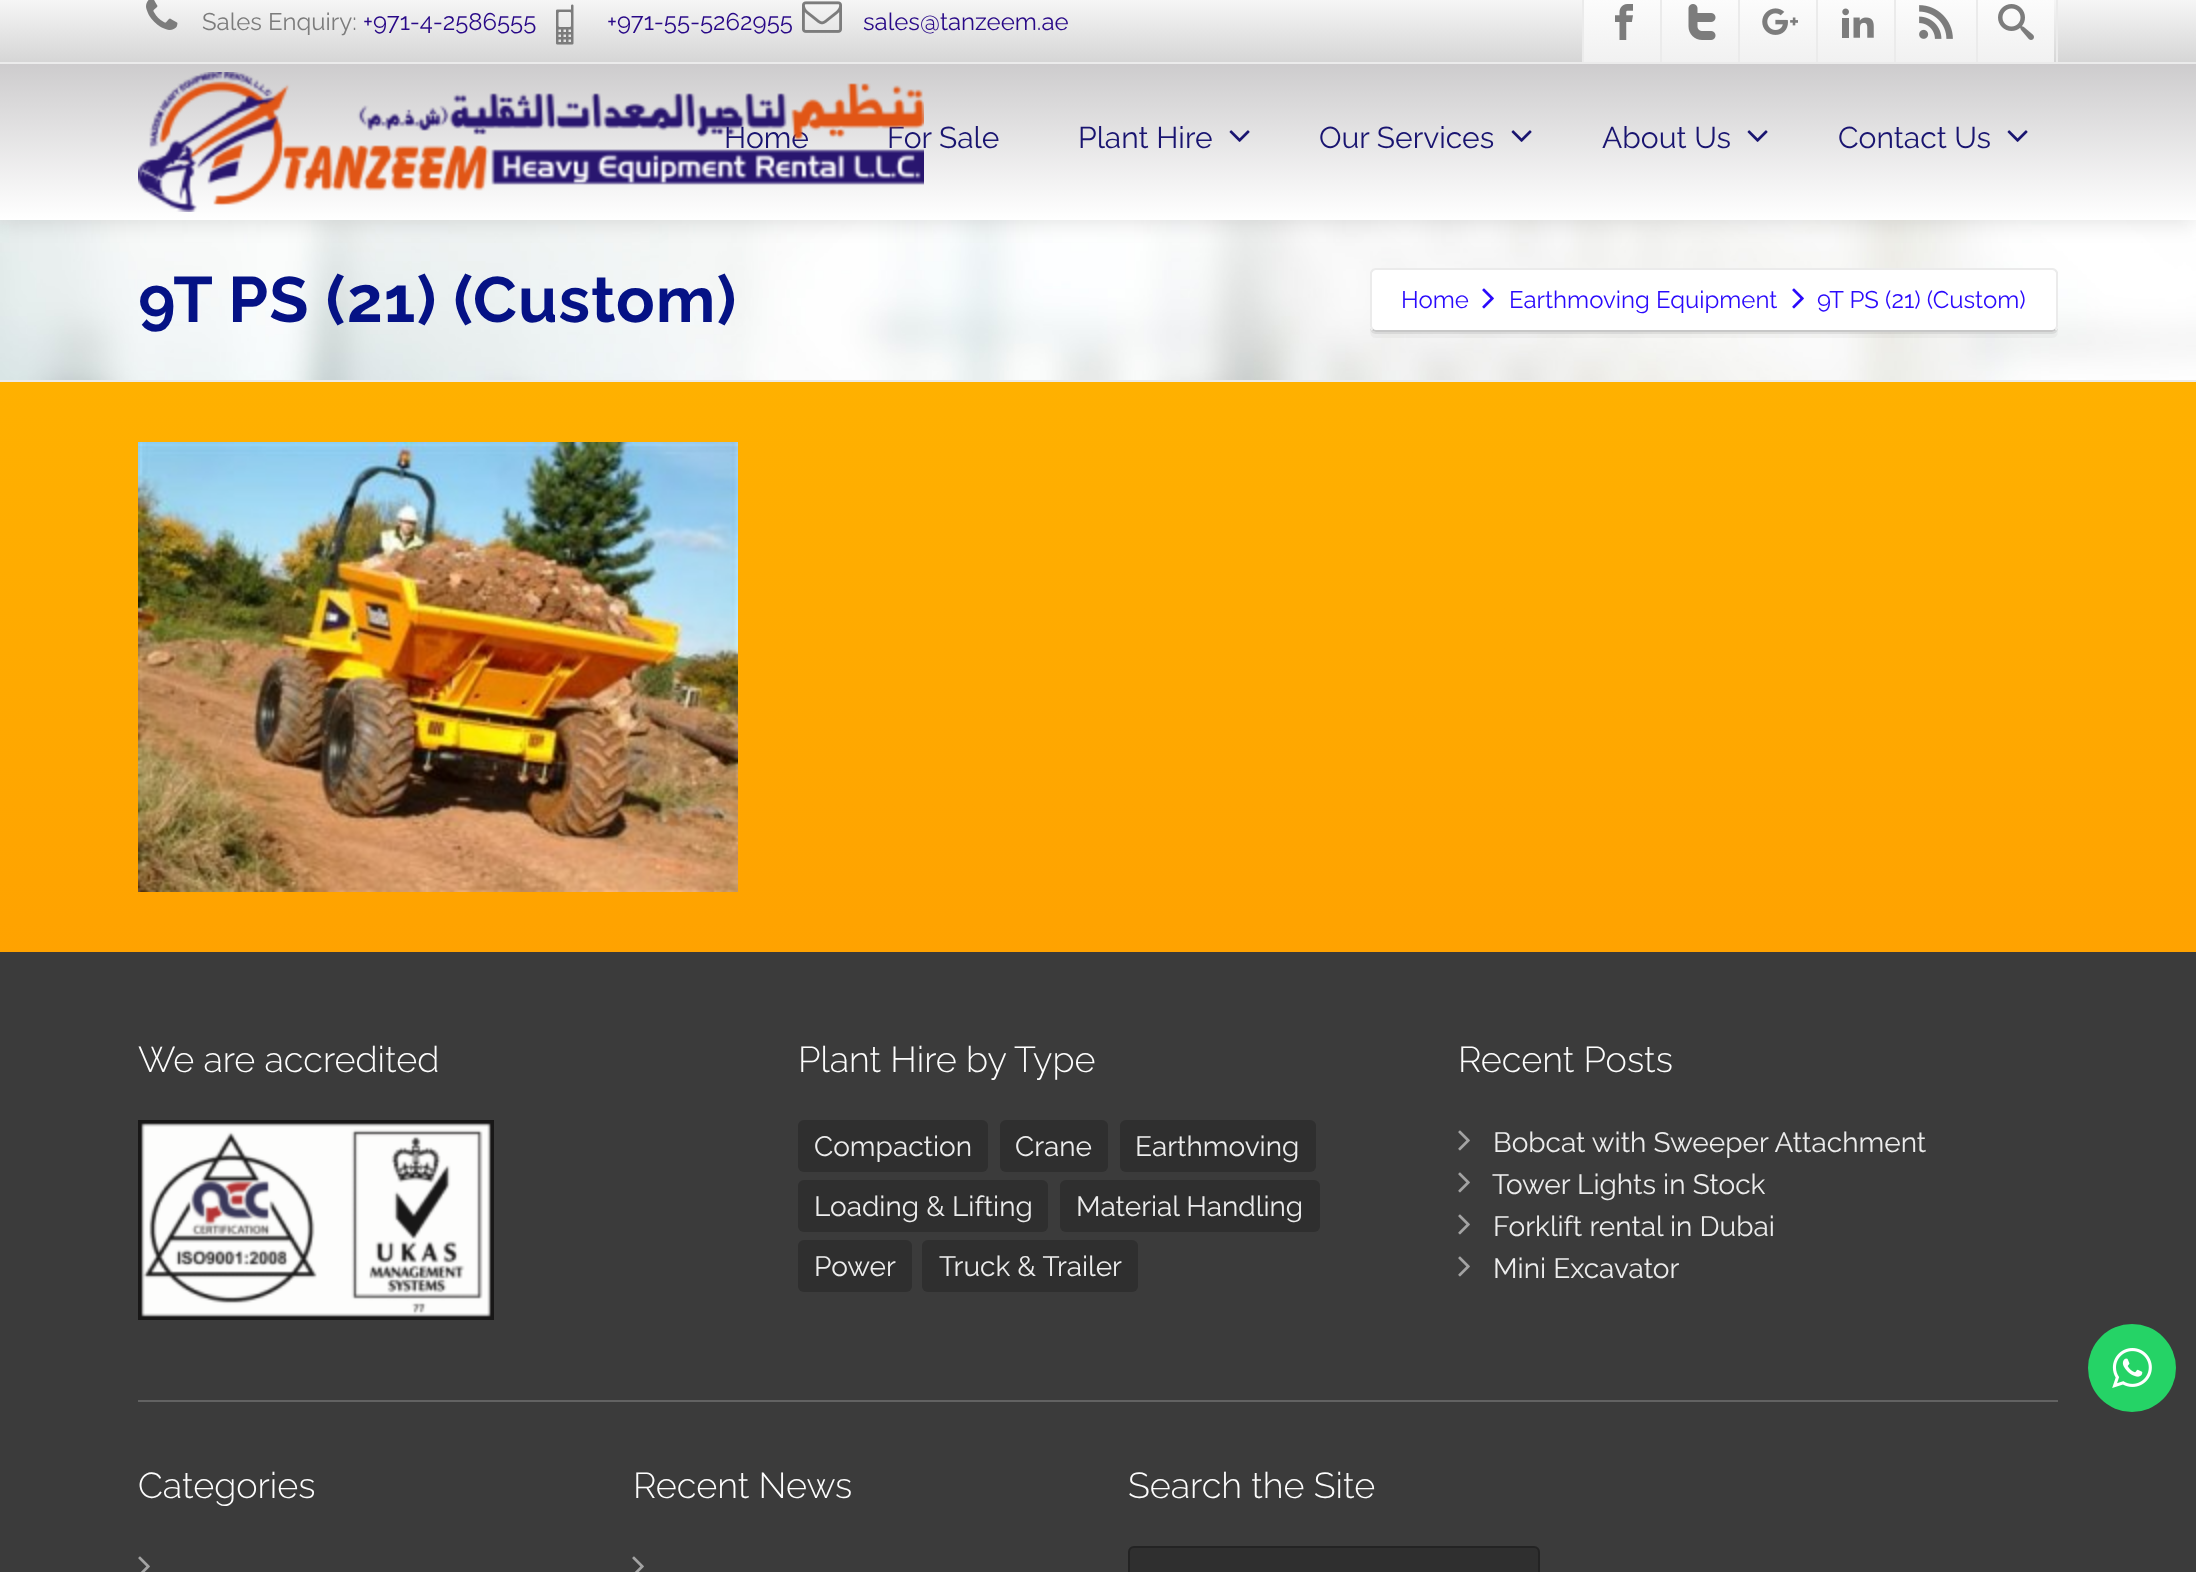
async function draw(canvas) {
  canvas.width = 2196;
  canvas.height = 1572;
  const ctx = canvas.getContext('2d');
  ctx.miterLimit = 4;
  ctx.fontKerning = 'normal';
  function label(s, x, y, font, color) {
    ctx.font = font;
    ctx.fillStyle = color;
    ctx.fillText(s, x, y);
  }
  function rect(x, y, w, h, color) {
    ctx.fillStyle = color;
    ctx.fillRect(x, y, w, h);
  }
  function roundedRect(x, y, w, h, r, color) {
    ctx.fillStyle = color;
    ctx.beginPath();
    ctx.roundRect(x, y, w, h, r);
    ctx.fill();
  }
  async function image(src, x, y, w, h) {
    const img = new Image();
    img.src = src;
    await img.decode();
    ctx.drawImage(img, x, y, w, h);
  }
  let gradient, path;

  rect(0, 0, 2196, 1572, '#fff');
  gradient = ctx.createLinearGradient(1098, -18, 1098, 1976);
  gradient.addColorStop(0, '#fb0');
  gradient.addColorStop(1, '#f80');
  ctx.fillStyle = gradient;
  ctx.fillRect(0, 382, 2196, 570);
  await image('assets/img12.png', 0, 220, 2196, 160);
  ctx.fillStyle = '#0000001a';
  ctx.filter = 'blur(10px)';
  ctx.beginPath();
  ctx.rect(0, -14, 2196, 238);
  ctx.fill();
  ctx.filter = 'none';
  rect(0, 62, 2196, 2, '#ebebeb');
  gradient = ctx.createLinearGradient(1098, -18, 1098, 62);
  gradient.addColorStop(0, '#fff');
  gradient.addColorStop(1, '#d6d6d6');
  ctx.fillStyle = gradient;
  ctx.fillRect(0, 0, 2196, 62);
  await image('assets/img1.png', 146, 0, 32, 30);
  label('Sales Enquiry:', 202, 30, '24px Raleway', '#7c7c7c');
  label('+971-4-2586555', 363, 30, '24px Raleway', '#280887');
  await image('assets/img2.png', 556, 4, 18, 41);
  label('+971-55-5262955', 607, 30, '24px Raleway', '#280887');
  await image('assets/img3.png', 802, 1, 40, 32);
  label('sales@tanzeem.ae', 863, 30, '24px Raleway', '#280887');
  gradient = ctx.createLinearGradient(1624, -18, 1624, 62);
  gradient.addColorStop(0, '#fff');
  gradient.addColorStop(1, '#f1f1f1');
  ctx.fillStyle = gradient;
  ctx.fillRect(1584, 0, 76, 62);
  rect(1582, 0, 2, 62, '#ebebeb');
  await image('assets/img4.png', 1615, 4, 18, 36);
  gradient = ctx.createLinearGradient(1702, -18, 1702, 62);
  gradient.addColorStop(0, '#fff');
  gradient.addColorStop(1, '#f1f1f1');
  ctx.fillStyle = gradient;
  ctx.fillRect(1662, 0, 76, 62);
  rect(1660, 0, 2, 62, '#ebebeb');
  await image('assets/img5.png', 1688, 4, 28, 36);
  gradient = ctx.createLinearGradient(1780, -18, 1780, 62);
  gradient.addColorStop(0, '#fff');
  gradient.addColorStop(1, '#f1f1f1');
  ctx.fillStyle = gradient;
  ctx.fillRect(1740, 0, 76, 62);
  rect(1738, 0, 2, 62, '#ebebeb');
  await image('assets/img6.png', 1762, 8, 36, 27);
  gradient = ctx.createLinearGradient(1858, -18, 1858, 62);
  gradient.addColorStop(0, '#fff');
  gradient.addColorStop(1, '#f1f1f1');
  ctx.fillStyle = gradient;
  ctx.fillRect(1818, 0, 76, 62);
  rect(1816, 0, 2, 62, '#ebebeb');
  await image('assets/img7.png', 1842, 8, 32, 30);
  gradient = ctx.createLinearGradient(1936, -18, 1936, 62);
  gradient.addColorStop(0, '#fff');
  gradient.addColorStop(1, '#f1f1f1');
  ctx.fillStyle = gradient;
  ctx.fillRect(1896, 0, 80, 62);
  rect(1976, 0, 2, 62, '#ebebeb');
  rect(1894, 0, 2, 62, '#ebebeb');
  await image('assets/img8.png', 1919, 5, 34, 34);
  rect(2056, 0, 2, 62, '#ebebeb');
  gradient = ctx.createLinearGradient(2016, -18, 2016, 62);
  gradient.addColorStop(0, '#fff');
  gradient.addColorStop(1, '#f1f1f1');
  ctx.fillStyle = gradient;
  ctx.fillRect(1978, 0, 76, 62);
  await image('assets/img9.png', 1998, 4, 36, 36);
  gradient = ctx.createLinearGradient(1098, -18, 1098, 220);
  gradient.addColorStop(0, '#b3b1b3');
  gradient.addColorStop(1, '#fff');
  ctx.fillStyle = gradient;
  ctx.fillRect(0, 64, 2196, 156);
  label('Home', 724, 148, '30px Raleway', '#191470');
  label('For Sale', 887, 148, '30px Raleway', '#191470');
  await image('assets/img10.png', 138, 72, 786, 140);
  label('Plant Hire', 1078, 148, '30px Raleway', '#191470');
  await image('assets/img11.png', 1229, 130, 21, 12);
  label('Our Services', 1319, 148, '30px Raleway', '#191470');
  await image('assets/img11.png', 1511, 130, 21, 12);
  label('About Us', 1602, 148, '30px Raleway', '#191470');
  await image('assets/img11.png', 1747, 130, 21, 12);
  label('Contact Us', 1838, 148, '30px Raleway', '#191470');
  await image('assets/img11.png', 2007, 130, 21, 12);
  rect(0, 380, 2196, 2, '#ebebeb');
  ctx.letterSpacing = '1px';
  label('9T PS (21) (Custom)', 138, 322, 'bold 64px Raleway', '#051285');
  ctx.fillStyle = '#00000012';
  path = new Path2D('M1370 326C1370 330 1371 334 1376 334H2052C2057 334 2058 330 2058 326C2058 329 2055 332 2052 332H1376C1373 332 1370 329 1370 326Z');
  ctx.fill(path);
  ctx.fillStyle = '#00000008';
  path = new Path2D('M1370 326C1370 331 1369 338 1376 338H2052C2059 338 2058 331 2058 326C2058 329 2055 332 2052 332H1376C1373 332 1370 329 1370 326Z');
  ctx.fill(path);
  roundedRect(1370, 268, 688, 64, 6, '#fff');
  path = new Path2D('M2055.5 329.5C2054.5 330.5 2053.5 331 2052 331H1376C1374.5 331 1373.5 330.5 1372.5 329.5');
  ctx.strokeStyle = '#00000038';
  ctx.lineWidth = 2;
  ctx.stroke(path);
  path = new Path2D('M1372.5 329.5L1371 326.5V272.5C1372 270.5 1373.5 269 1375.5 269H2052.5C2054.5 269 2056 270.5 2057 272.5V326.5L2055.5 329.5');
  ctx.strokeStyle = '#ebebeb';
  ctx.stroke(path);
  ctx.letterSpacing = '0px';
  label('Home', 1401, 308, '24px Raleway', '#2a0afc');
  await image('assets/img13.png', 1482, 288, 12, 21);
  label('Earthmoving Equipment', 1509, 308, '24px Raleway', '#2a0afc');
  await image('assets/img13.png', 1792, 288, 12, 21);
  label('9T PS (21) (Custom)', 1817, 308, '24px Raleway', '#2a0afc');
  await image('assets/img14.png', 138, 442, 600, 450);
  rect(0, 952, 2196, 620, '#3b3b3b');
  label('We are accredited', 138, 1072, '300 36px Raleway', '#fdfdfd');
  await image('assets/img15.png', 138, 1120, 356, 200);
  label('Plant Hire by Type', 798, 1072, '300 36px Raleway', '#fdfdfd');
  roundedRect(798, 1120, 190, 52, 6, '#2f2f2f');
  label('Compaction', 814, 1156, '28px Raleway', '#ececec');
  roundedRect(1000, 1120, 108, 52, 6, '#2f2f2f');
  label('Crane', 1015, 1156, '28px Raleway', '#ececec');
  roundedRect(1120, 1120, 196, 52, 6, '#2f2f2f');
  label('Earthmoving', 1135, 1156, '28px Raleway', '#ececec');
  roundedRect(798, 1180, 250, 52, 6, '#2f2f2f');
  label('Loading & Lifting', 814, 1216, '28px Raleway', '#ececec');
  roundedRect(1060, 1180, 260, 52, 6, '#2f2f2f');
  label('Material Handling', 1076, 1216, '28px Raleway', '#ececec');
  roundedRect(798, 1240, 114, 52, 6, '#2f2f2f');
  label('Power', 814, 1276, '28px Raleway', '#ececec');
  roundedRect(922, 1240, 216, 52, 6, '#2f2f2f');
  label('Truck & Trailer', 939, 1276, '28px Raleway', '#ececec');
  label('Recent Posts', 1458, 1072, '300 36px Raleway', '#fdfdfd');
  await image('assets/img16.png', 1458, 1130, 12, 21);
  label('Bobcat with Sweeper Attachment', 1493, 1152, '28px Raleway', '#ececec');
  await image('assets/img16.png', 1458, 1172, 12, 21);
  label('Tower Lights in Stock', 1492, 1194, '28px Raleway', '#ececec');
  await image('assets/img16.png', 1458, 1214, 12, 21);
  label('Forklift rental in Dubai', 1493, 1236, '28px Raleway', '#ececec');
  await image('assets/img16.png', 1458, 1256, 12, 21);
  label('Mini Excavator', 1493, 1278, '28px Raleway', '#ececec');
  rect(138, 1400, 1920, 2, '#626262');
  label('Categories', 138, 1498, '300 36px Raleway', '#fdfdfd');
  await image('assets/img17.png', 138, 1556, 12, 16);
  label('Recent News', 633, 1498, '300 36px Raleway', '#fdfdfd');
  await image('assets/img17.png', 632, 1556, 12, 16);
  label('Search the Site', 1128, 1498, '300 36px Raleway', '#fdfdfd');
  ctx.fillStyle = '#2f2f2f';
  ctx.beginPath();
  ctx.roundRect(1129, 1547, 410, 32, 5);
  ctx.fill();
  ctx.strokeStyle = '#232323';
  ctx.stroke();
  ctx.fillStyle = '#25d366';
  ctx.beginPath();
  ctx.arc(2132, 1368, 44, 0, 2 * Math.PI);
  ctx.fill();
  await image('assets/img18.png', 2112, 1348, 40, 40);
}

draw(document.querySelector('canvas'));
